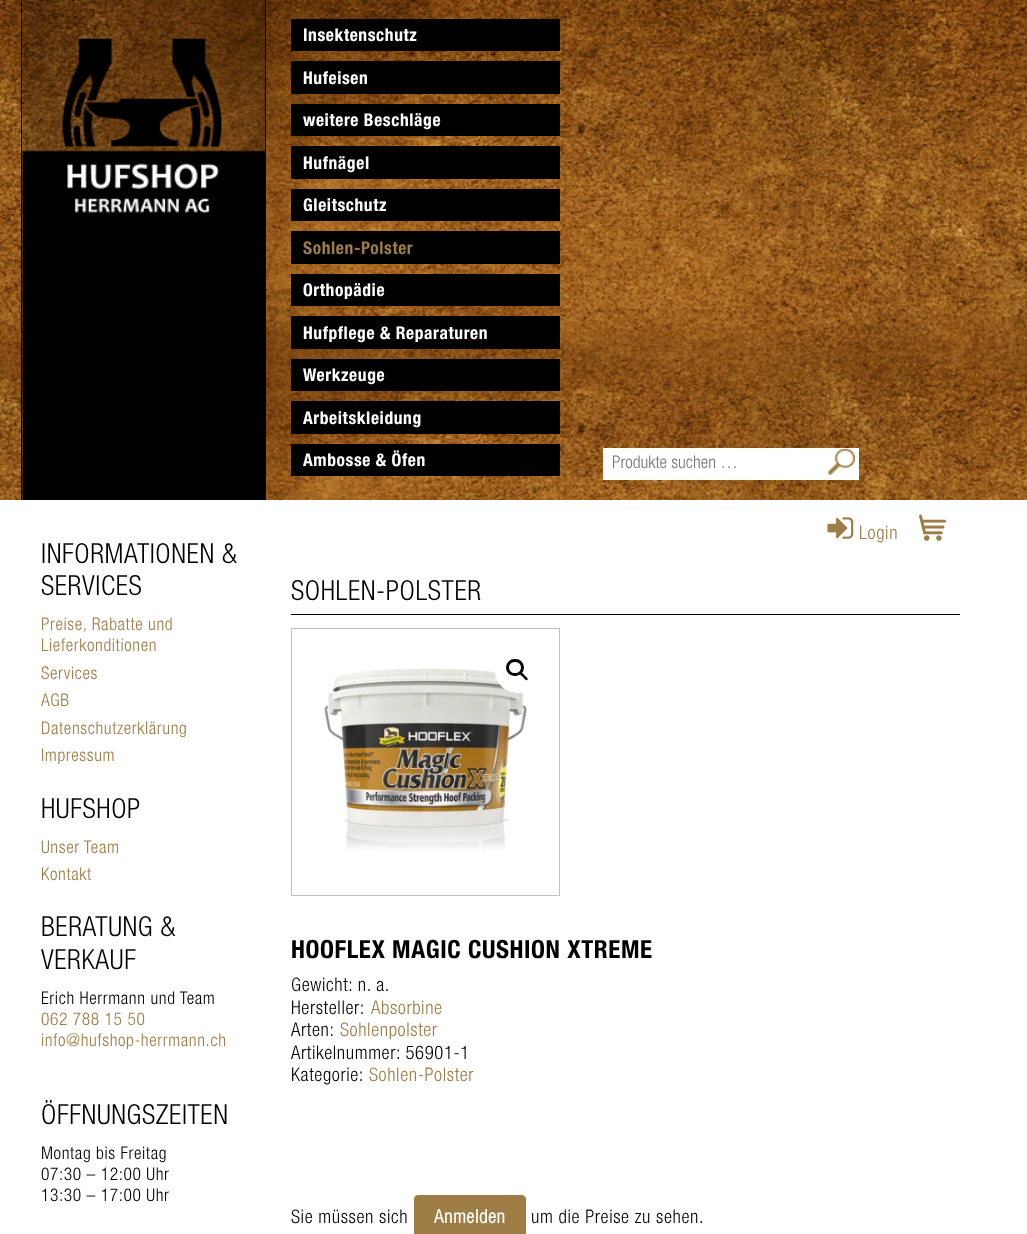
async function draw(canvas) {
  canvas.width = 1027;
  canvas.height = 1234;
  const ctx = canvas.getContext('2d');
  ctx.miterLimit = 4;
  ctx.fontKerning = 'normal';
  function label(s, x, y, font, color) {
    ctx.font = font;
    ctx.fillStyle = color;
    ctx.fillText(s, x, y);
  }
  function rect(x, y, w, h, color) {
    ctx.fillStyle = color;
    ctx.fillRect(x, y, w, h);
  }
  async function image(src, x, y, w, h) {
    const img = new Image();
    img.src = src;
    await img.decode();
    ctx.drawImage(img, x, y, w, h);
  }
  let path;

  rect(0, 0, 1027, 1234, '#fff');
  await image('assets/img1.png', 0, 0, 1027, 500);
  await image('assets/img2.png', 22, 0, 243, 500);
  rect(265, 0, 1, 500, '#000');
  rect(21, 0, 1, 500, '#000');
  rect(291, 19, 269, 32, '#000');
  ctx.letterSpacing = '0.6px';
  label('Insektenschutz', 303, 41, '17.5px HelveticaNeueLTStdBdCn', '#fff');
  rect(291, 61, 269, 33, '#000');
  label('Hufeisen', 303, 84, '17.5px HelveticaNeueLTStdBdCn', '#fff');
  rect(291, 104, 269, 32, '#000');
  label('weitere Beschläge', 303, 126, '17.5px HelveticaNeueLTStdBdCn', '#fff');
  rect(291, 146, 269, 33, '#000');
  label('Hufnägel', 303, 169, '17.5px HelveticaNeueLTStdBdCn', '#fff');
  rect(291, 189, 269, 32, '#000');
  label('Gleitschutz', 303, 211, '17.5px HelveticaNeueLTStdBdCn', '#fff');
  rect(291, 231, 269, 33, '#000');
  label('Sohlen-Polster', 303, 254, '17.5px HelveticaNeueLTStdBdCn', '#9e7c45');
  rect(291, 274, 269, 32, '#000');
  label('Orthopädie', 303, 296, '17.5px HelveticaNeueLTStdBdCn', '#fff');
  rect(291, 316, 269, 33, '#000');
  label('Hufpflege & Reparaturen', 303, 339, '17.5px HelveticaNeueLTStdBdCn', '#fff');
  rect(291, 359, 269, 32, '#000');
  label('Werkzeuge', 303, 381, '17.5px HelveticaNeueLTStdBdCn', '#fff');
  rect(291, 401, 269, 33, '#000');
  label('Arbeitskleidung', 303, 424, '17.5px HelveticaNeueLTStdBdCn', '#fff');
  rect(291, 444, 269, 32, '#000');
  label('Ambosse & Öfen', 303, 466, '17.5px HelveticaNeueLTStdBdCn', '#fff');
  rect(828, 449, 30, 30, '#fff');
  await image('assets/img3.png', 828, 449, 27, 26);
  ctx.strokeStyle = '#fff';
  ctx.strokeRect(826.5, 448.5, 32, 31);
  rect(603, 448, 225, 32, '#fff');
  ctx.letterSpacing = '0px';
  label('Produkte suchen …', 612, 468, '17.5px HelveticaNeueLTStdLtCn', '#757575');
  await image('assets/img4.png', 827, 517, 27, 22);
  ctx.letterSpacing = '0.6px';
  label('Login', 859, 539, '18.75px HelveticaNeueLTStdLtCn', '#9e7c45');
  await image('assets/img5.png', 919, 514, 27, 27);
  label('INFORMATIONEN &', 41, 563, '27.5px HelveticaNeueLTStdLtCn', '#000');
  label('SERVICES', 41, 595, '27.5px HelveticaNeueLTStdLtCn', '#000');
  label('Preise, Rabatte und', 41, 630, '17.5px HelveticaNeueLTStdLtCn', '#9e7c45');
  label('Lieferkonditionen', 41, 651, '17.5px HelveticaNeueLTStdLtCn', '#9e7c45');
  label('Services', 41, 679, '17.5px HelveticaNeueLTStdLtCn', '#9e7c45');
  label('AGB', 41, 706, '17.5px HelveticaNeueLTStdLtCn', '#9e7c45');
  label('Datenschutzerklärung', 41, 734, '17.5px HelveticaNeueLTStdLtCn', '#9e7c45');
  label('Impressum', 41, 761, '17.5px HelveticaNeueLTStdLtCn', '#9e7c45');
  label('HUFSHOP', 41, 818, '27.5px HelveticaNeueLTStdLtCn', '#000');
  label('Unser Team', 41, 853, '17.5px HelveticaNeueLTStdLtCn', '#9e7c45');
  label('Kontakt', 41, 880, '17.5px HelveticaNeueLTStdLtCn', '#9e7c45');
  label('BERATUNG &', 41, 936, '27.5px HelveticaNeueLTStdLtCn', '#000');
  label('VERKAUF', 41, 969, '27.5px HelveticaNeueLTStdLtCn', '#000');
  label('Erich Herrmann und Team', 41, 1004, '17.5px HelveticaNeueLTStdLtCn', '#000');
  label('062 788 15 50', 41, 1025, '17.5px HelveticaNeueLTStdLtCn', '#9e7c45');
  label('info@hufshop-herrmann.ch', 41, 1046, '17.5px HelveticaNeueLTStdLtCn', '#9e7c45');
  label('ÖFFNUNGSZEITEN', 41, 1124, '27.5px HelveticaNeueLTStdLtCn', '#000');
  label('Montag bis Freitag', 41, 1159, '17.5px HelveticaNeueLTStdLtCn', '#000');
  label('07:30 – 12:00 Uhr', 41, 1180, '17.5px HelveticaNeueLTStdLtCn', '#000');
  label('13:30 – 17:00 Uhr', 41, 1201, '17.5px HelveticaNeueLTStdLtCn', '#000');
  rect(291, 614, 669, 1, '#000');
  label('SOHLEN-POLSTER', 291, 600, '27.5px HelveticaNeueLTStdLtCn', '#000');
  ctx.strokeStyle = '#bfbfbf';
  ctx.strokeRect(291.5, 628.5, 268, 267);
  await image('assets/img6.png', 324, 668, 203, 183);
  ctx.fillStyle = '#fff';
  ctx.beginPath();
  ctx.arc(517.5, 670.5, 22.5, 0, 2 * Math.PI);
  ctx.fill();
  ctx.beginPath();
  ctx.roundRect(507.5, 660.5, 15, 14, 7);
  ctx.strokeStyle = '#000';
  ctx.lineWidth = 3;
  ctx.stroke();
  ctx.fillStyle = '#000';
  path = new Path2D('M520 672.5C521.5 671.5 524 674.5 524.5 675.5C525.5 676 528.5 678.5 527.5 680C526 681 523.5 678 523 677C522 676.5 519 674 520 672.5Z');
  ctx.fill(path);
  label('HOOFLEX MAGIC CUSHION XTREME', 291, 958, '25px HelveticaNeueLTStdBdCn', '#000');
  label('Gewicht: n. a.', 291, 991, '18.75px HelveticaNeueLTStdLtCn', '#000');
  label('Hersteller:', 291, 1014, '18.75px HelveticaNeueLTStdLtCn', '#000');
  label('Absorbine', 371, 1014, '18.75px HelveticaNeueLTStdLtCn', '#9e7c45');
  label('Arten:', 291, 1036, '18.75px HelveticaNeueLTStdLtCn', '#000');
  label('Sohlenpolster', 340, 1036, '18.75px HelveticaNeueLTStdLtCn', '#9e7c45');
  label('Artikelnummer: 56901-1', 291, 1059, '18.75px HelveticaNeueLTStdLtCn', '#000');
  label('Kategorie:', 291, 1081, '18.75px HelveticaNeueLTStdLtCn', '#000');
  label('Sohlen-Polster', 369, 1081, '18.75px HelveticaNeueLTStdLtCn', '#9e7c45');
  label('Sie müssen sich', 291, 1223, '18.75px HelveticaNeueLTStdLtCn', '#000');
  ctx.fillStyle = '#9e7c45';
  ctx.beginPath();
  ctx.roundRect(414.5, 1195.5, 111, 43, 3.5);
  ctx.fill();
  ctx.strokeStyle = '#9e7c45';
  ctx.lineWidth = 1;
  ctx.stroke();
  label('Anmelden', 434, 1223, 'bold 18.75px HelveticaNeueLTStdLtCn', '#fff');
  label('um die Preise zu sehen.', 531, 1223, '18.75px HelveticaNeueLTStdLtCn', '#000');
}

draw(document.querySelector('canvas'));
